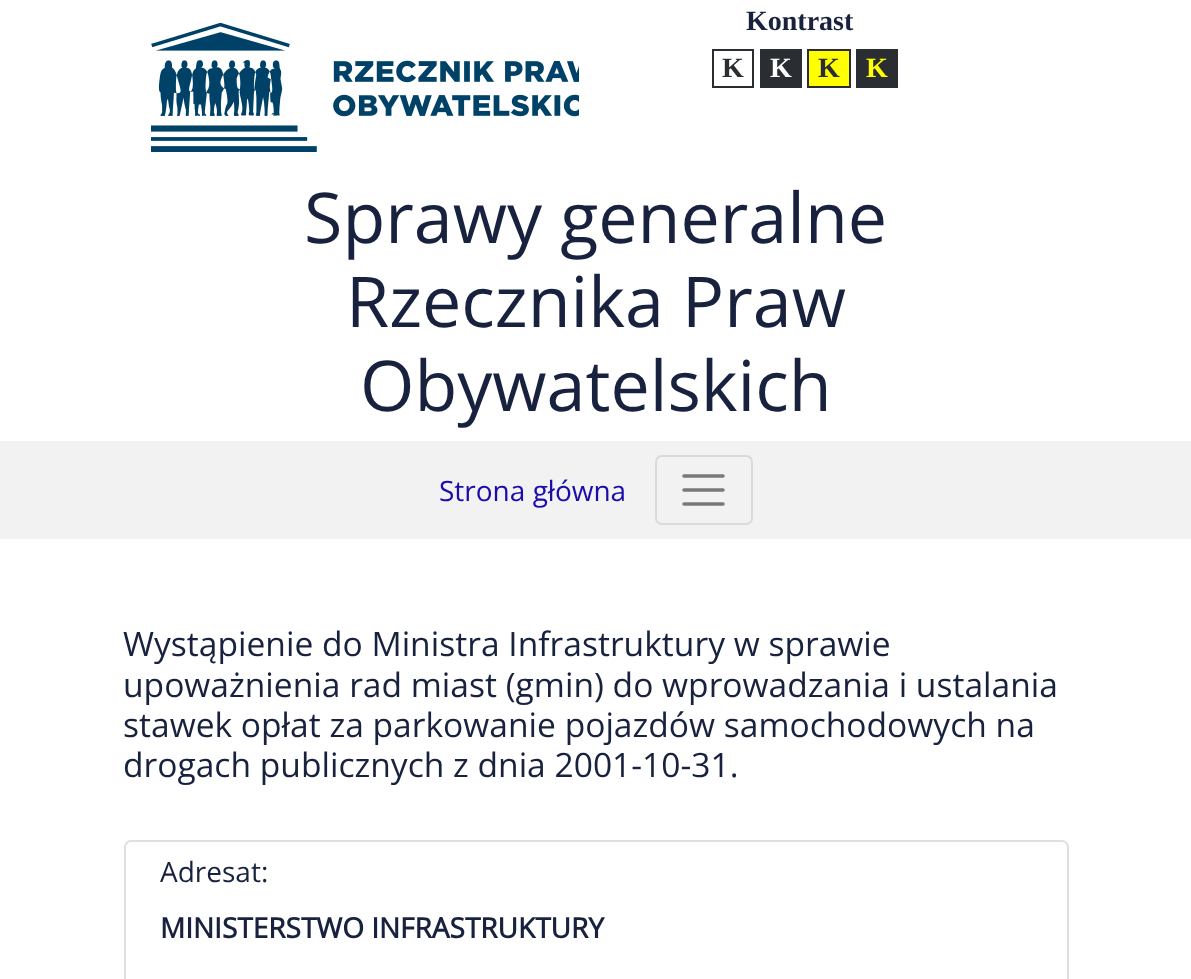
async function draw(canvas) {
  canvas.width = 1191;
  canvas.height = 979;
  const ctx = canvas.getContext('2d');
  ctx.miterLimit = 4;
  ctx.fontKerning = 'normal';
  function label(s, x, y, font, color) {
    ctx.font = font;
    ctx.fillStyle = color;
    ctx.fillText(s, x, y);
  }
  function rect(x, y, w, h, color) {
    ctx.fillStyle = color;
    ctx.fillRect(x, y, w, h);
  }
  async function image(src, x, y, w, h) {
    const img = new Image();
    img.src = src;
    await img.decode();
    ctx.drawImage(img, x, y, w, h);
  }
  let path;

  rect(0, 0, 1191, 979, '#fff');
  await image('assets/img1.png', 151, 23, 428, 129);
  label('Kontrast', 746, 30, 'bold 28px Liberation Serif', '#18223e');
  ctx.strokeStyle = '#2a2e32';
  ctx.lineWidth = 2;
  ctx.strokeRect(713, 50, 40, 37);
  label('K', 722, 77, 'bold 28px Liberation Serif', '#2a2e32');
  rect(760, 49, 42, 39, '#2a2e32');
  label('K', 770, 77, 'bold 28px Liberation Serif', '#fff');
  ctx.fillStyle = '#ff0';
  ctx.beginPath();
  ctx.rect(808, 50, 42, 37);
  ctx.fill();
  ctx.stroke();
  label('K', 818, 77, 'bold 28px Liberation Serif', '#2a2e32');
  rect(856, 49, 42, 39, '#2a2e32');
  label('K', 866, 77, 'bold 28px Liberation Serif', '#ff0');
  label('Sprawy generalne', 304, 243, '70px Open Sans', '#18223e');
  label('Rzecznika Praw', 346, 327, '70px Open Sans', '#18223e');
  label('Obywatelskich', 360, 411, '70px Open Sans', '#18223e');
  rect(0, 441, 1191, 98, '#f2f2f2');
  label('Strona główna', 439, 501, '28px Open Sans', '#1a0dab');
  ctx.beginPath();
  ctx.roundRect(656, 456, 96, 68, 6);
  ctx.strokeStyle = '#dadada';
  ctx.stroke();
  path = new Path2D('M684 476H723M684 490H723M684 504H723');
  ctx.strokeStyle = '#797979';
  ctx.lineWidth = 3.5;
  ctx.lineCap = 'round';
  ctx.stroke(path);
  label('Wystąpienie do Ministra Infrastruktury w sprawie', 123, 656, '33.6px Open Sans', '#18223e');
  label('upoważnienia rad miast (gmin) do wprowadzania i ustalania', 123, 697, '33.6px Open Sans', '#18223e');
  label('stawek opłat za parkowanie pojazdów samochodowych na', 123, 737, '33.6px Open Sans', '#18223e');
  label('drogach publicznych z dnia 2001-10-31.', 123, 777, '33.6px Open Sans', '#18223e');
  ctx.beginPath();
  ctx.roundRect(125, 841, 943, 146, 6);
  ctx.strokeStyle = '#dfdfdf';
  ctx.lineWidth = 2;
  ctx.stroke();
  label('Adresat:', 160, 882, '28px Open Sans', '#18223e');
  label('MINISTERSTWO INFRASTRUKTURY', 160, 938, 'bold 28px Open Sans', '#18223e');
}

draw(document.querySelector('canvas'));
